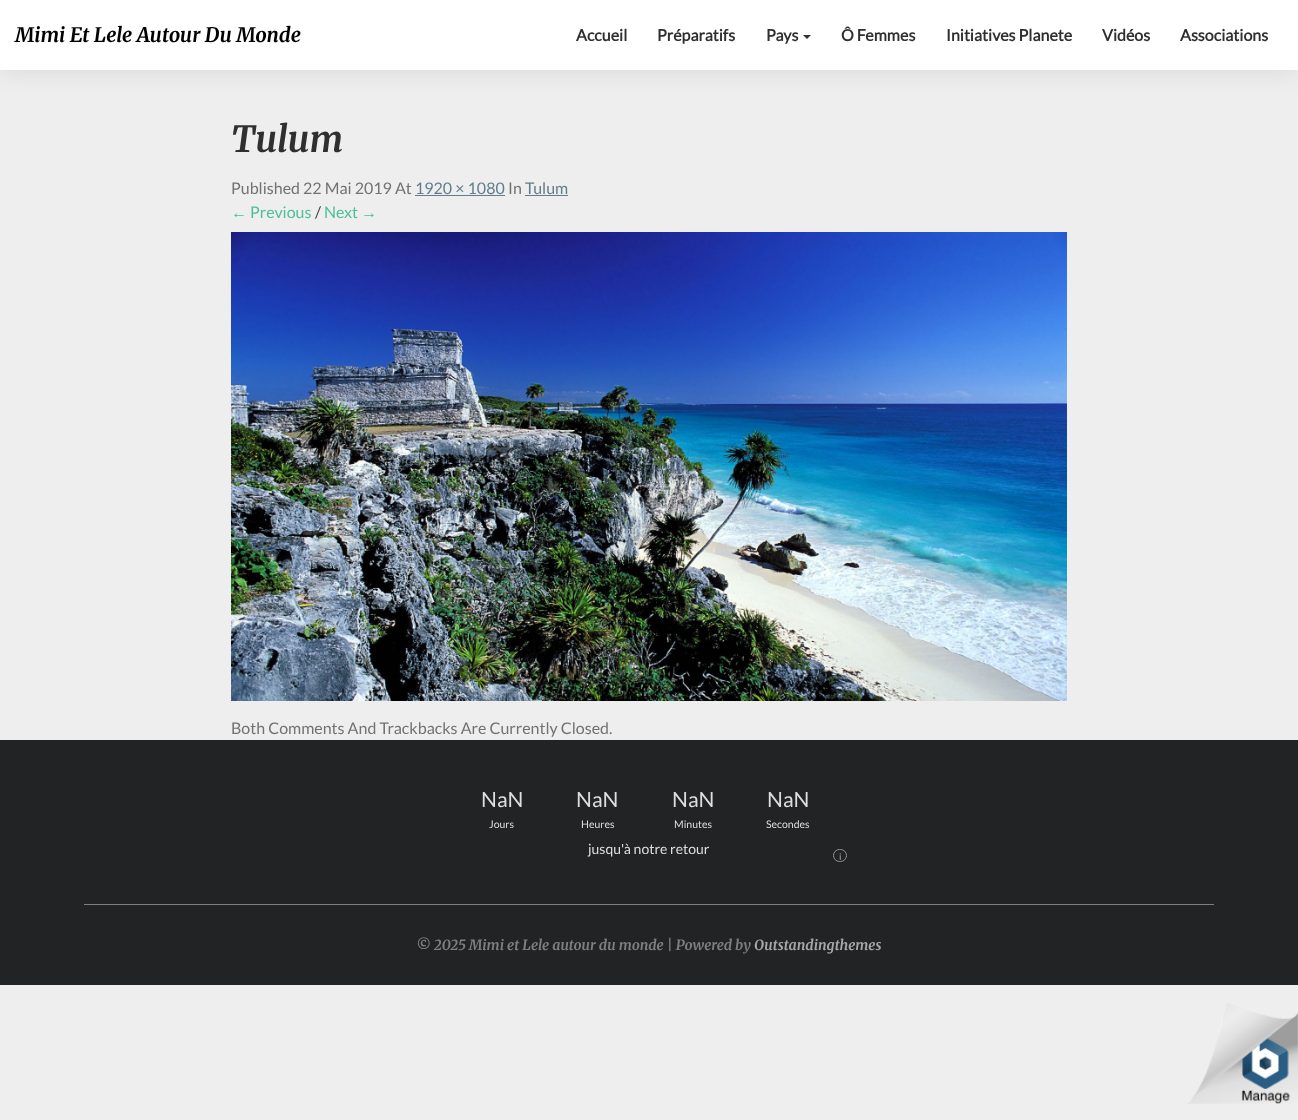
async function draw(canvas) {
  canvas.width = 1298;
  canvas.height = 1120;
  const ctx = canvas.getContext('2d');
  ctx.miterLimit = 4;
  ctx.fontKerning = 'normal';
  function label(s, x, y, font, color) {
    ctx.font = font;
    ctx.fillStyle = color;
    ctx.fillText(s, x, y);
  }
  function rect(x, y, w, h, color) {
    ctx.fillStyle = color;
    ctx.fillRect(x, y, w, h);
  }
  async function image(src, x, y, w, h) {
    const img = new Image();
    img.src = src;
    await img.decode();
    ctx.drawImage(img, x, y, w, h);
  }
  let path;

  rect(0, 0, 1298, 1120, '#eee');
  ctx.fillStyle = '#00000014';
  ctx.filter = 'blur(12.5px)';
  ctx.beginPath();
  ctx.rect(0, 2, 1298, 70);
  ctx.fill();
  ctx.filter = 'none';
  rect(0, 0, 1298, 70, '#fff');
  label('Mimi Et Lele Autour Du Monde', 15, 42, 'italic 300 20px Merriweather', '#000');
  label('Accueil', 576, 41, 'bold 16px Lato', '#2f2f2f');
  label('Préparatifs', 657, 41, 'bold 16px Lato', '#2f2f2f');
  label('Pays', 766, 41, 'bold 16px Lato', '#2f2f2f');
  ctx.fillStyle = '#333';
  path = new Path2D('M803 35H811L807 39Z');
  ctx.fill(path);
  label('Ô Femmes', 841, 41, 'bold 16px Lato', '#2f2f2f');
  label('Initiatives Planete', 946, 41, 'bold 16px Lato', '#2f2f2f');
  label('Vidéos', 1102, 41, 'bold 16px Lato', '#2f2f2f');
  label('Associations', 1180, 41, 'bold 16px Lato', '#2f2f2f');
  label('Tulum', 231, 152, 'italic 300 36px Merriweather', '#2f2f2f');
  label('Published 22 Mai 2019 At', 231, 194, '16px Lato', '#727272');
  label('1920 × 1080', 415, 194, '16px Lato', '#607d8b');
  rect(415, 195, 90, 1, '#607d8b');
  label('In', 508, 194, '16px Lato', '#727272');
  label('Tulum', 525, 194, '16px Lato', '#607d8b');
  rect(525, 195, 43, 1, '#607d8b');
  label('←', 231, 218, '16px Liberation Sans', '#4dbf99');
  label('Previous', 250, 218, '16px Lato', '#4dbf99');
  label('/', 315, 218, '16px Lato', '#424242');
  label('Next', 324, 218, '16px Lato', '#4dbf99');
  label('→', 361, 218, '16px Liberation Sans', '#4dbf99');
  await image('assets/img1.png', 231, 232, 836, 469);
  label('Both Comments And Trackbacks Are Currently Closed.', 231, 734, '16px Lato', '#727272');
  rect(0, 740, 1298, 245, '#212324');
  label('NaN', 481, 807, '21px Lato', '#dedede');
  label('Jours', 489, 828, '10.5px Lato', '#dedede');
  label('NaN', 576, 807, '21px Lato', '#dedede');
  label('Heures', 581, 828, '10.5px Lato', '#dedede');
  label('NaN', 672, 807, '21px Lato', '#dedede');
  label('Minutes', 674, 828, '10.5px Lato', '#dedede');
  label('NaN', 767, 807, '21px Lato', '#dedede');
  label('Secondes', 766, 828, '10.5px Lato', '#dedede');
  label('jusqu\'à notre retour', 588, 854, '14px Lato', '#dedede');
  ctx.beginPath();
  ctx.roundRect(833.5, 849.5, 13, 12, 6);
  ctx.strokeStyle = '#909192';
  ctx.stroke();
  label('i', 839, 860, 'bold 9px Lato', '#909192');
  rect(84, 904, 1130, 1, '#7f7f7f');
  label('© 2025 Mimi et Lele autour du monde | Powered by', 416, 950, 'italic 300 14px Merriweather', '#7f7f7f');
  label('Outstandingthemes', 754, 950, 'italic 300 14px Merriweather', '#a7a7a7');
  await image('assets/img2.png', 1187, 1003, 111, 101);
}

draw(document.querySelector('canvas'));
